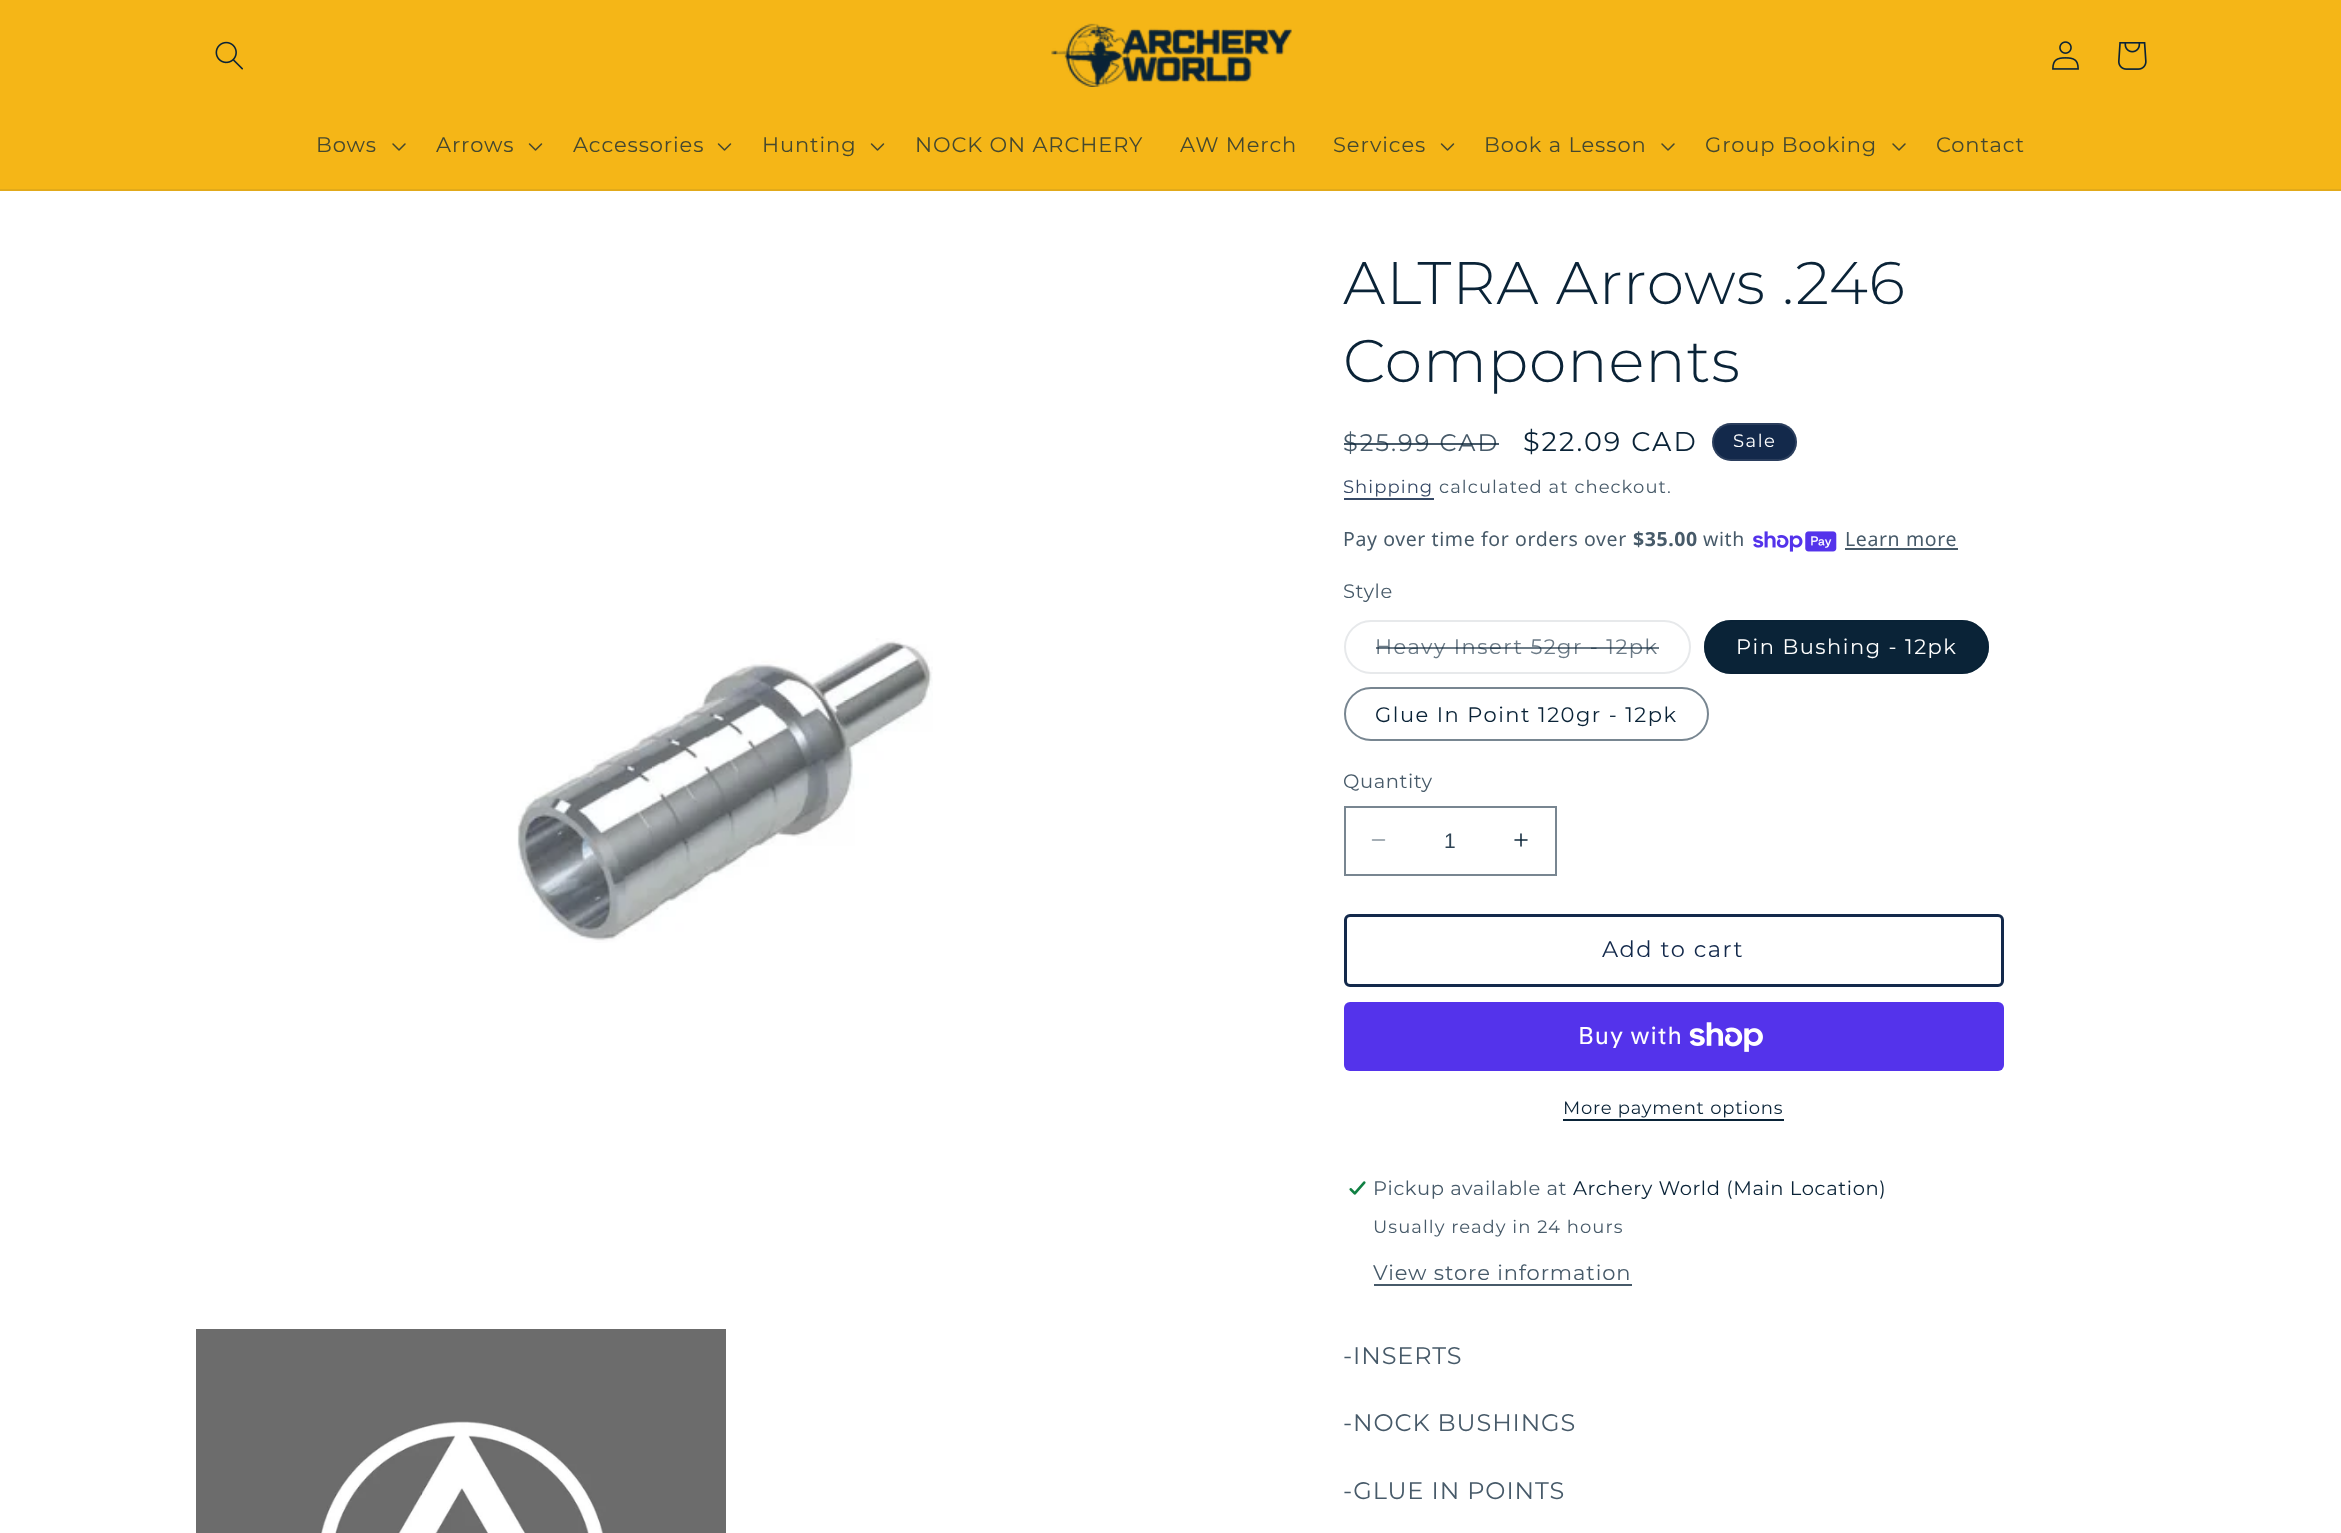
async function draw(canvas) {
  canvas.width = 2341;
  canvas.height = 1533;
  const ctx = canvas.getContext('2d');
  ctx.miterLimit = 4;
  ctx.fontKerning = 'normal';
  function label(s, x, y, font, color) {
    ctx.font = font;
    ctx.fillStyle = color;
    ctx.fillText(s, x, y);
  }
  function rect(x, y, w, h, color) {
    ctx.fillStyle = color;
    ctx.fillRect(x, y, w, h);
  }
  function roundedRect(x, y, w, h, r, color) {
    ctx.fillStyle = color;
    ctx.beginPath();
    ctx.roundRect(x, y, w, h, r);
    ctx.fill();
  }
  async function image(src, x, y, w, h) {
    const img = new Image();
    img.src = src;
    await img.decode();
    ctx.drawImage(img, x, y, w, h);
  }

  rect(0, 0, 2341, 1533, '#fff');
  rect(0, 0, 2341, 189, '#f5b617');
  rect(0, 189, 2341, 2, '#e2aa1a');
  await image('assets/img1.png', 215, 41, 28, 29);
  await image('assets/img2.png', 1051, 23, 241, 64);
  await image('assets/img3.png', 2052, 41, 27, 29);
  await image('assets/img4.png', 2118, 42, 29, 28);
  ctx.letterSpacing = '0.9px';
  label('Bows', 316, 152, '21px Montserrat', '#45482f');
  await image('assets/img5.png', 392, 143, 14, 8);
  label('Arrows', 436, 152, '21px Montserrat', '#45482f');
  await image('assets/img6.png', 528, 143, 15, 8);
  label('Accessories', 573, 152, '21px Montserrat', '#45482f');
  await image('assets/img6.png', 717, 143, 15, 8);
  label('Hunting', 762, 152, '21px Montserrat', '#45482f');
  await image('assets/img6.png', 870, 143, 15, 8);
  label('NOCK ON ARCHERY', 915, 152, '21px Montserrat', '#45482f');
  label('AW Merch', 1180, 152, '21px Montserrat', '#45482f');
  label('Services', 1333, 152, '21px Montserrat', '#45482f');
  await image('assets/img6.png', 1440, 143, 15, 8);
  label('Book a Lesson', 1484, 152, '21px Montserrat', '#45482f');
  await image('assets/img5.png', 1661, 143, 14, 8);
  label('Group Booking', 1705, 152, '21px Montserrat', '#45482f');
  await image('assets/img5.png', 1892, 143, 14, 8);
  label('Contact', 1936, 152, '21px Montserrat', '#45482f');
  await image('assets/img7.png', 517, 638, 416, 305);
  await image('assets/img8.png', 196, 1329, 530, 204);
  label('ALTRA Arrows .246', 1343, 304, '300 60px Montserrat', '#0a2337');
  label('Components', 1343, 382, '300 60px Montserrat', '#0a2337');
  ctx.letterSpacing = '2px';
  label('$25.99 CAD', 1343, 451, '24px Montserrat', '#475a69');
  rect(1344, 443, 155, 2, '#0a2337bf');
  label('$22.09 CAD', 1523, 451, '27px Montserrat', '#0a2337');
  roundedRect(1712, 423, 85, 38, 19, '#13294b');
  ctx.beginPath();
  ctx.roundRect(1713, 424, 83, 36, 18);
  ctx.strokeStyle = '#ffffff1a';
  ctx.lineWidth = 2;
  ctx.stroke();
  ctx.letterSpacing = '1.5px';
  label('Sale', 1733, 447, '18px Montserrat', '#fff');
  ctx.letterSpacing = '1.05px';
  label('Shipping', 1343, 493, '18px Montserrat', '#364966');
  rect(1344, 498, 90, 2, '#364966');
  label('calculated at checkout.', 1439, 493, '18px Montserrat', '#475a69');
  ctx.letterSpacing = '0.6px';
  label('Pay over time for orders over', 1343, 546, '19.5px Noto Sans', '#475a69');
  label('$35.00', 1633, 546, 'bold 19.5px Noto Sans', '#475a69');
  label('with', 1703, 546, '19.5px Noto Sans', '#475a69');
  await image('assets/img9.png', 1753, 531, 84, 21);
  label('Learn more', 1845, 546, '19.5px Noto Sans', '#475a69');
  rect(1845, 548, 113, 2, '#475a69');
  label('Style', 1343, 598, '19.5px Montserrat', '#475a69');
  ctx.beginPath();
  ctx.roundRect(1345, 621, 345, 52, 26);
  ctx.strokeStyle = '#e7e9eb';
  ctx.stroke();
  ctx.letterSpacing = '1.5px';
  label('Heavy Insert 52gr - 12pk', 1375, 654, '21px Montserrat', '#6c7b87');
  rect(1376, 647, 283, 2, '#0a233799');
  roundedRect(1704, 620, 285, 54, 27, '#0a2337');
  ctx.beginPath();
  ctx.roundRect(1705, 621, 283, 52, 26);
  ctx.strokeStyle = '#0a23378c';
  ctx.stroke();
  label('Pin Bushing - 12pk', 1736, 654, '21px Montserrat', '#fff');
  ctx.beginPath();
  ctx.roundRect(1345, 688, 363, 52, 26);
  ctx.strokeStyle = '#788691';
  ctx.stroke();
  label('Glue In Point 120gr - 12pk', 1375, 722, '21px Montserrat', '#0a2337');
  ctx.letterSpacing = '0.6px';
  label('Quantity', 1343, 788, '19.5px Montserrat', '#475a69');
  await image('assets/img10.png', 1371, 839, 15, 2);
  await image('assets/img11.png', 1514, 833, 14, 14);
  ctx.strokeRect(1345, 807, 211, 68);
  ctx.letterSpacing = '0px';
  label('1', 1444, 848, '21px Liberation Sans', '#2f4455');
  ctx.beginPath();
  ctx.roundRect(1345.5, 915.5, 657, 70, 4.5);
  ctx.strokeStyle = '#13294b';
  ctx.lineWidth = 3;
  ctx.stroke();
  ctx.letterSpacing = '1.5px';
  label('Add to cart', 1602, 957, '22.5px Montserrat', '#13294b');
  roundedRect(1344, 1002, 660, 69, 6, '#5433eb');
  ctx.letterSpacing = '0.9px';
  label('Buy with', 1578, 1044, '24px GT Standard', '#fff');
  await image('assets/img12.png', 1689, 1022, 74, 30);
  ctx.letterSpacing = '0.75px';
  label('More payment options', 1563, 1114, '18px Montserrat', '#0a2337');
  rect(1563, 1119, 221, 2, '#0a2337');
  await image('assets/img13.png', 1348, 1181, 18, 14);
  ctx.letterSpacing = '0.6px';
  label('Pickup available at', 1373, 1195, '19.5px Montserrat', '#475a69');
  label('Archery World (Main Location)', 1573, 1195, '19.5px Montserrat', '#0a2337');
  ctx.letterSpacing = '1.05px';
  label('Usually ready in 24 hours', 1373, 1233, '18px Montserrat', '#475a69');
  ctx.letterSpacing = '0.9px';
  label('View store information', 1373, 1280, '21px Montserrat', '#475a69');
  rect(1374, 1284, 258, 2, '#475a69');
  label('-INSERTS', 1343, 1364, '24px Montserrat', '#475a69');
  label('-NOCK BUSHINGS', 1343, 1431, '24px Montserrat', '#475a69');
  label('-GLUE IN POINTS', 1343, 1499, '24px Montserrat', '#475a69');
}

draw(document.querySelector('canvas'));
